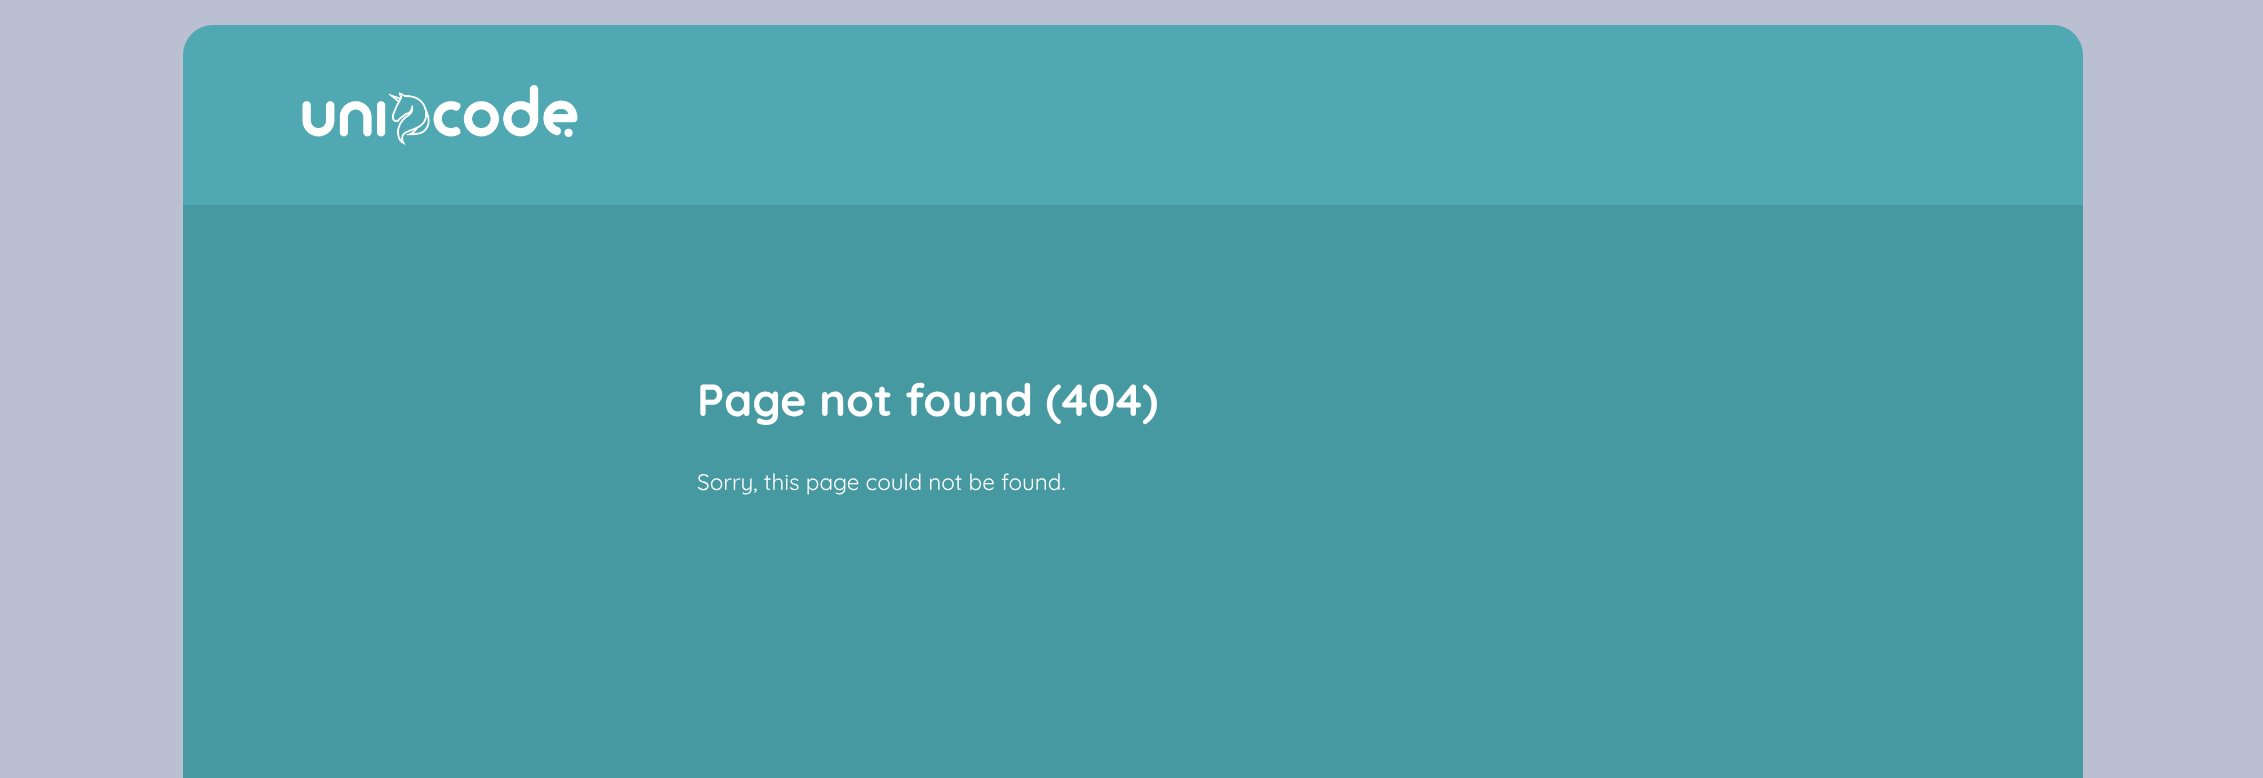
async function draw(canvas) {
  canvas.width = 2263;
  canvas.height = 778;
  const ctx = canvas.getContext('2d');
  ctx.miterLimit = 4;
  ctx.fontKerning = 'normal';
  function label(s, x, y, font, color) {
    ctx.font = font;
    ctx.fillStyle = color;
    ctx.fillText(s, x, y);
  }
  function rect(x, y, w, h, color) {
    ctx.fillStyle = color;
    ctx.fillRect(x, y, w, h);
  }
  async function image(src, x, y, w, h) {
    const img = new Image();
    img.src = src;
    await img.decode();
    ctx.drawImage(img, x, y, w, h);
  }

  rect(0, 0, 2263, 778, '#babfd2');
  ctx.fillStyle = '#50a8b2';
  ctx.beginPath();
  ctx.roundRect(183, 25, 1900, 180, [30, 30, 0, 0]);
  ctx.fill();
  await image('assets/img1.png', 302, 85, 276, 60);
  rect(183, 205, 1900, 573, '#4799a1');
  label('Page not found (404)', 697, 416, 'bold 45px Quicksand', '#fff');
  label('Sorry, this page could not be found.', 697, 490, '22.5px Quicksand', '#fff');
}

draw(document.querySelector('canvas'));
